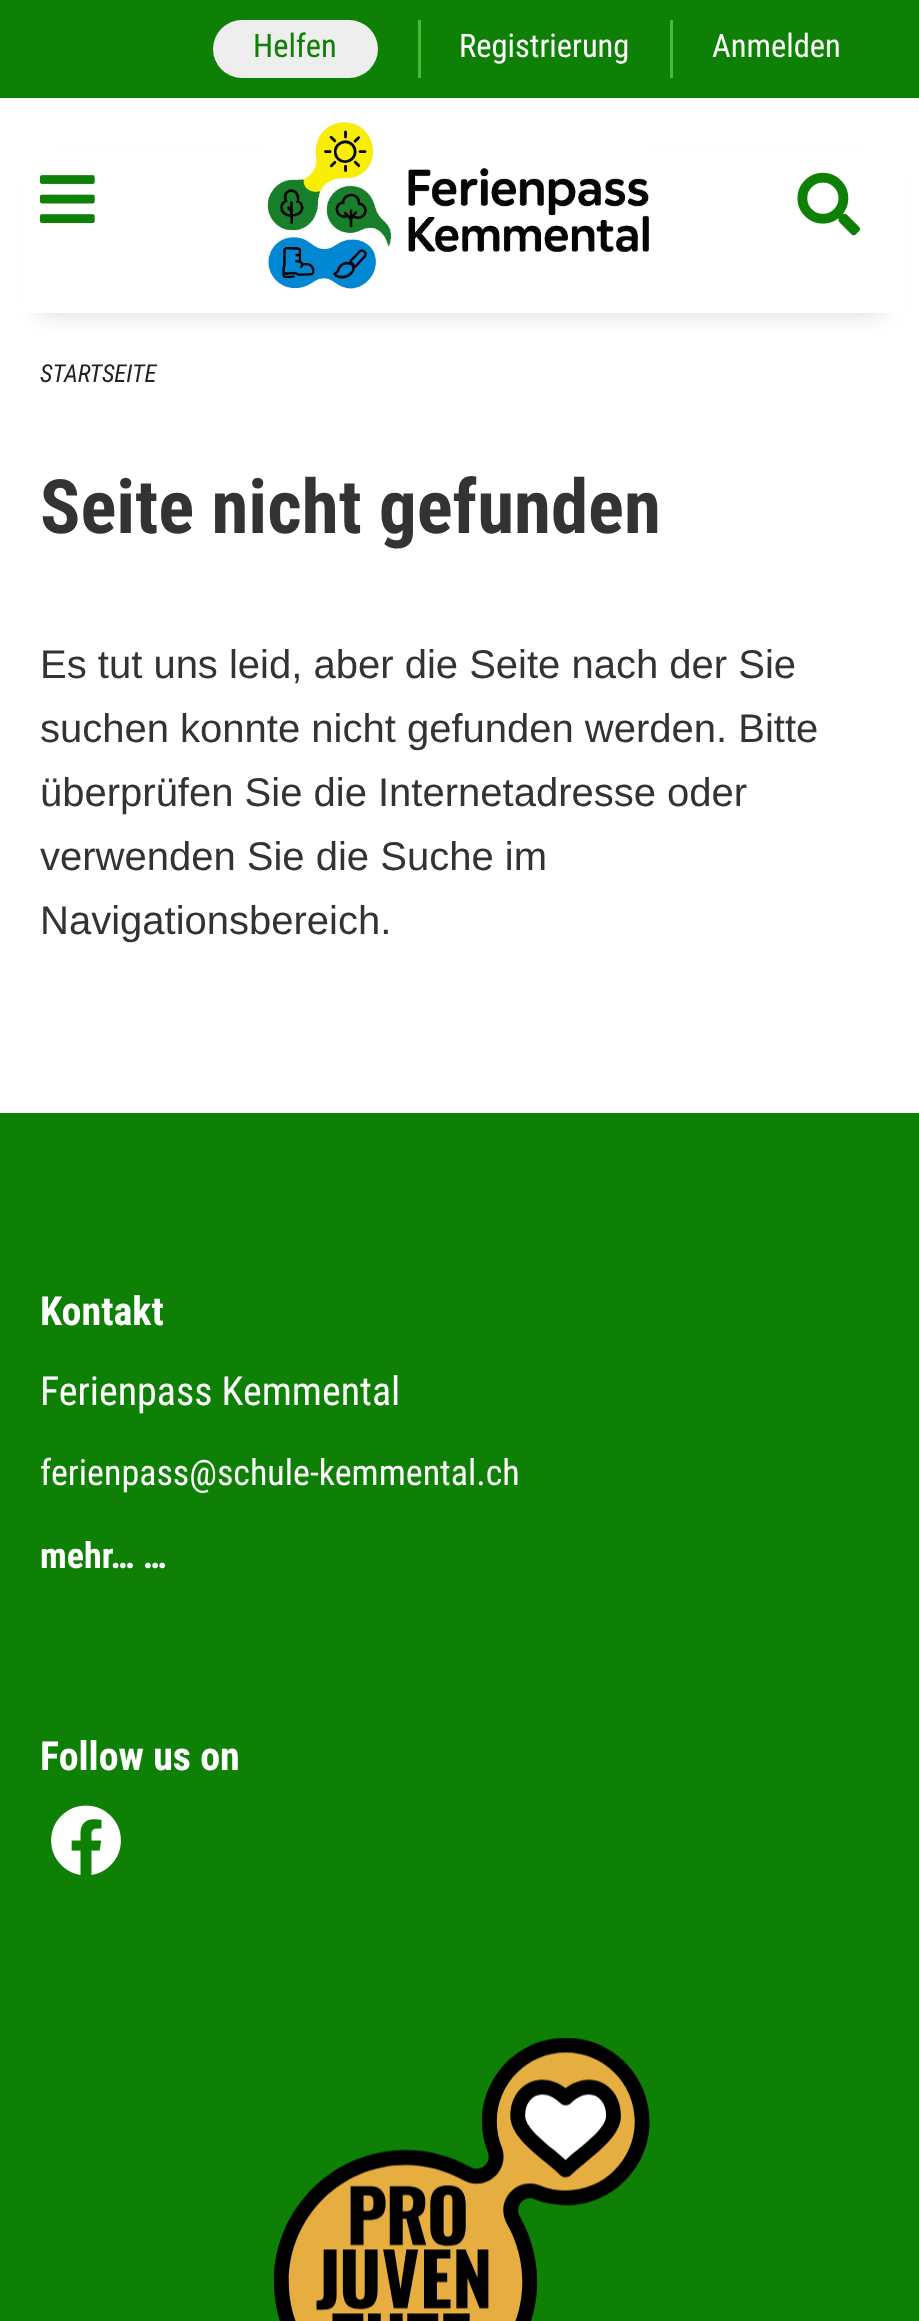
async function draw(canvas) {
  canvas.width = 919;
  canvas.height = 2321;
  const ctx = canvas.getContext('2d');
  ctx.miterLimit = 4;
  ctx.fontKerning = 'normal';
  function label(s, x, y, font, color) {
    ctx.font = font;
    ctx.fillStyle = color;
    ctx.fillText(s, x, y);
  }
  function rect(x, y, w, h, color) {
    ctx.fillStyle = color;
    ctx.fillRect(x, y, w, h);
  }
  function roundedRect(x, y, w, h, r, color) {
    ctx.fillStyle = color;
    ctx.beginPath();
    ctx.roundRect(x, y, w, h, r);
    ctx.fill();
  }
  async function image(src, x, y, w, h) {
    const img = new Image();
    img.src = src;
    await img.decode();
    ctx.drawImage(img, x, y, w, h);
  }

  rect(0, 0, 919, 2321, '#fff');
  rect(0, 0, 919, 98, '#0d8005');
  roundedRect(213, 20, 165, 58, 29, '#eee');
  label('Helfen', 253, 57, '32.5px Roboto Condensed', '#0d8005');
  rect(418, 20, 3, 58, '#40bf37');
  label('Registrierung', 459, 57, '32.5px Roboto Condensed', '#fff');
  rect(670, 20, 3, 58, '#40bf37');
  label('Anmelden', 712, 57, '32.5px Roboto Condensed', '#fff');
  ctx.fillStyle = '#00000026';
  ctx.filter = 'blur(12.5px)';
  ctx.beginPath();
  ctx.rect(38, 173, 845, 140);
  ctx.fill();
  ctx.filter = 'none';
  rect(19, 154, 883, 159, '#fff');
  await image('assets/img1.png', 40, 175, 55, 48);
  await image('assets/img2.png', 266, 119, 383, 171);
  await image('assets/img3.png', 797, 172, 63, 64);
  label('STARTSEITE', 40, 382, 'italic 24.75px Roboto Condensed', '#222');
  label('Seite nicht gefunden', 40, 533, 'bold 75px Roboto Condensed', '#333');
  label('Es tut uns leid, aber die Seite nach der Sie', 40, 678, '40px Liberation Sans', '#333');
  label('suchen konnte nicht gefunden werden. Bitte', 40, 742, '40px Liberation Sans', '#333');
  label('überprüfen Sie die Internetadresse oder', 40, 806, '40px Liberation Sans', '#333');
  label('verwenden Sie die Suche im', 40, 870, '40px Liberation Sans', '#333');
  label('Navigationsbereich.', 40, 934, '40px Liberation Sans', '#333');
  rect(0, 1113, 919, 1208, '#0d8005');
  label('Kontakt', 40, 1325, 'bold 40px Roboto Condensed', '#fff');
  label('Ferienpass Kemmental', 40, 1405, '40px Roboto Condensed', '#fff');
  label('ferienpass@schule-kemmental.ch', 40, 1485, '36px Roboto Condensed', '#fff');
  label('mehr… …', 40, 1568, 'bold 36px Roboto Condensed', '#fff');
  label('Follow us on', 40, 1770, 'bold 40px Roboto Condensed', '#fff');
  await image('assets/img4.png', 51, 1805, 70, 70);
  await image('assets/img5.png', 273, 2038, 377, 283);
}

draw(document.querySelector('canvas'));
